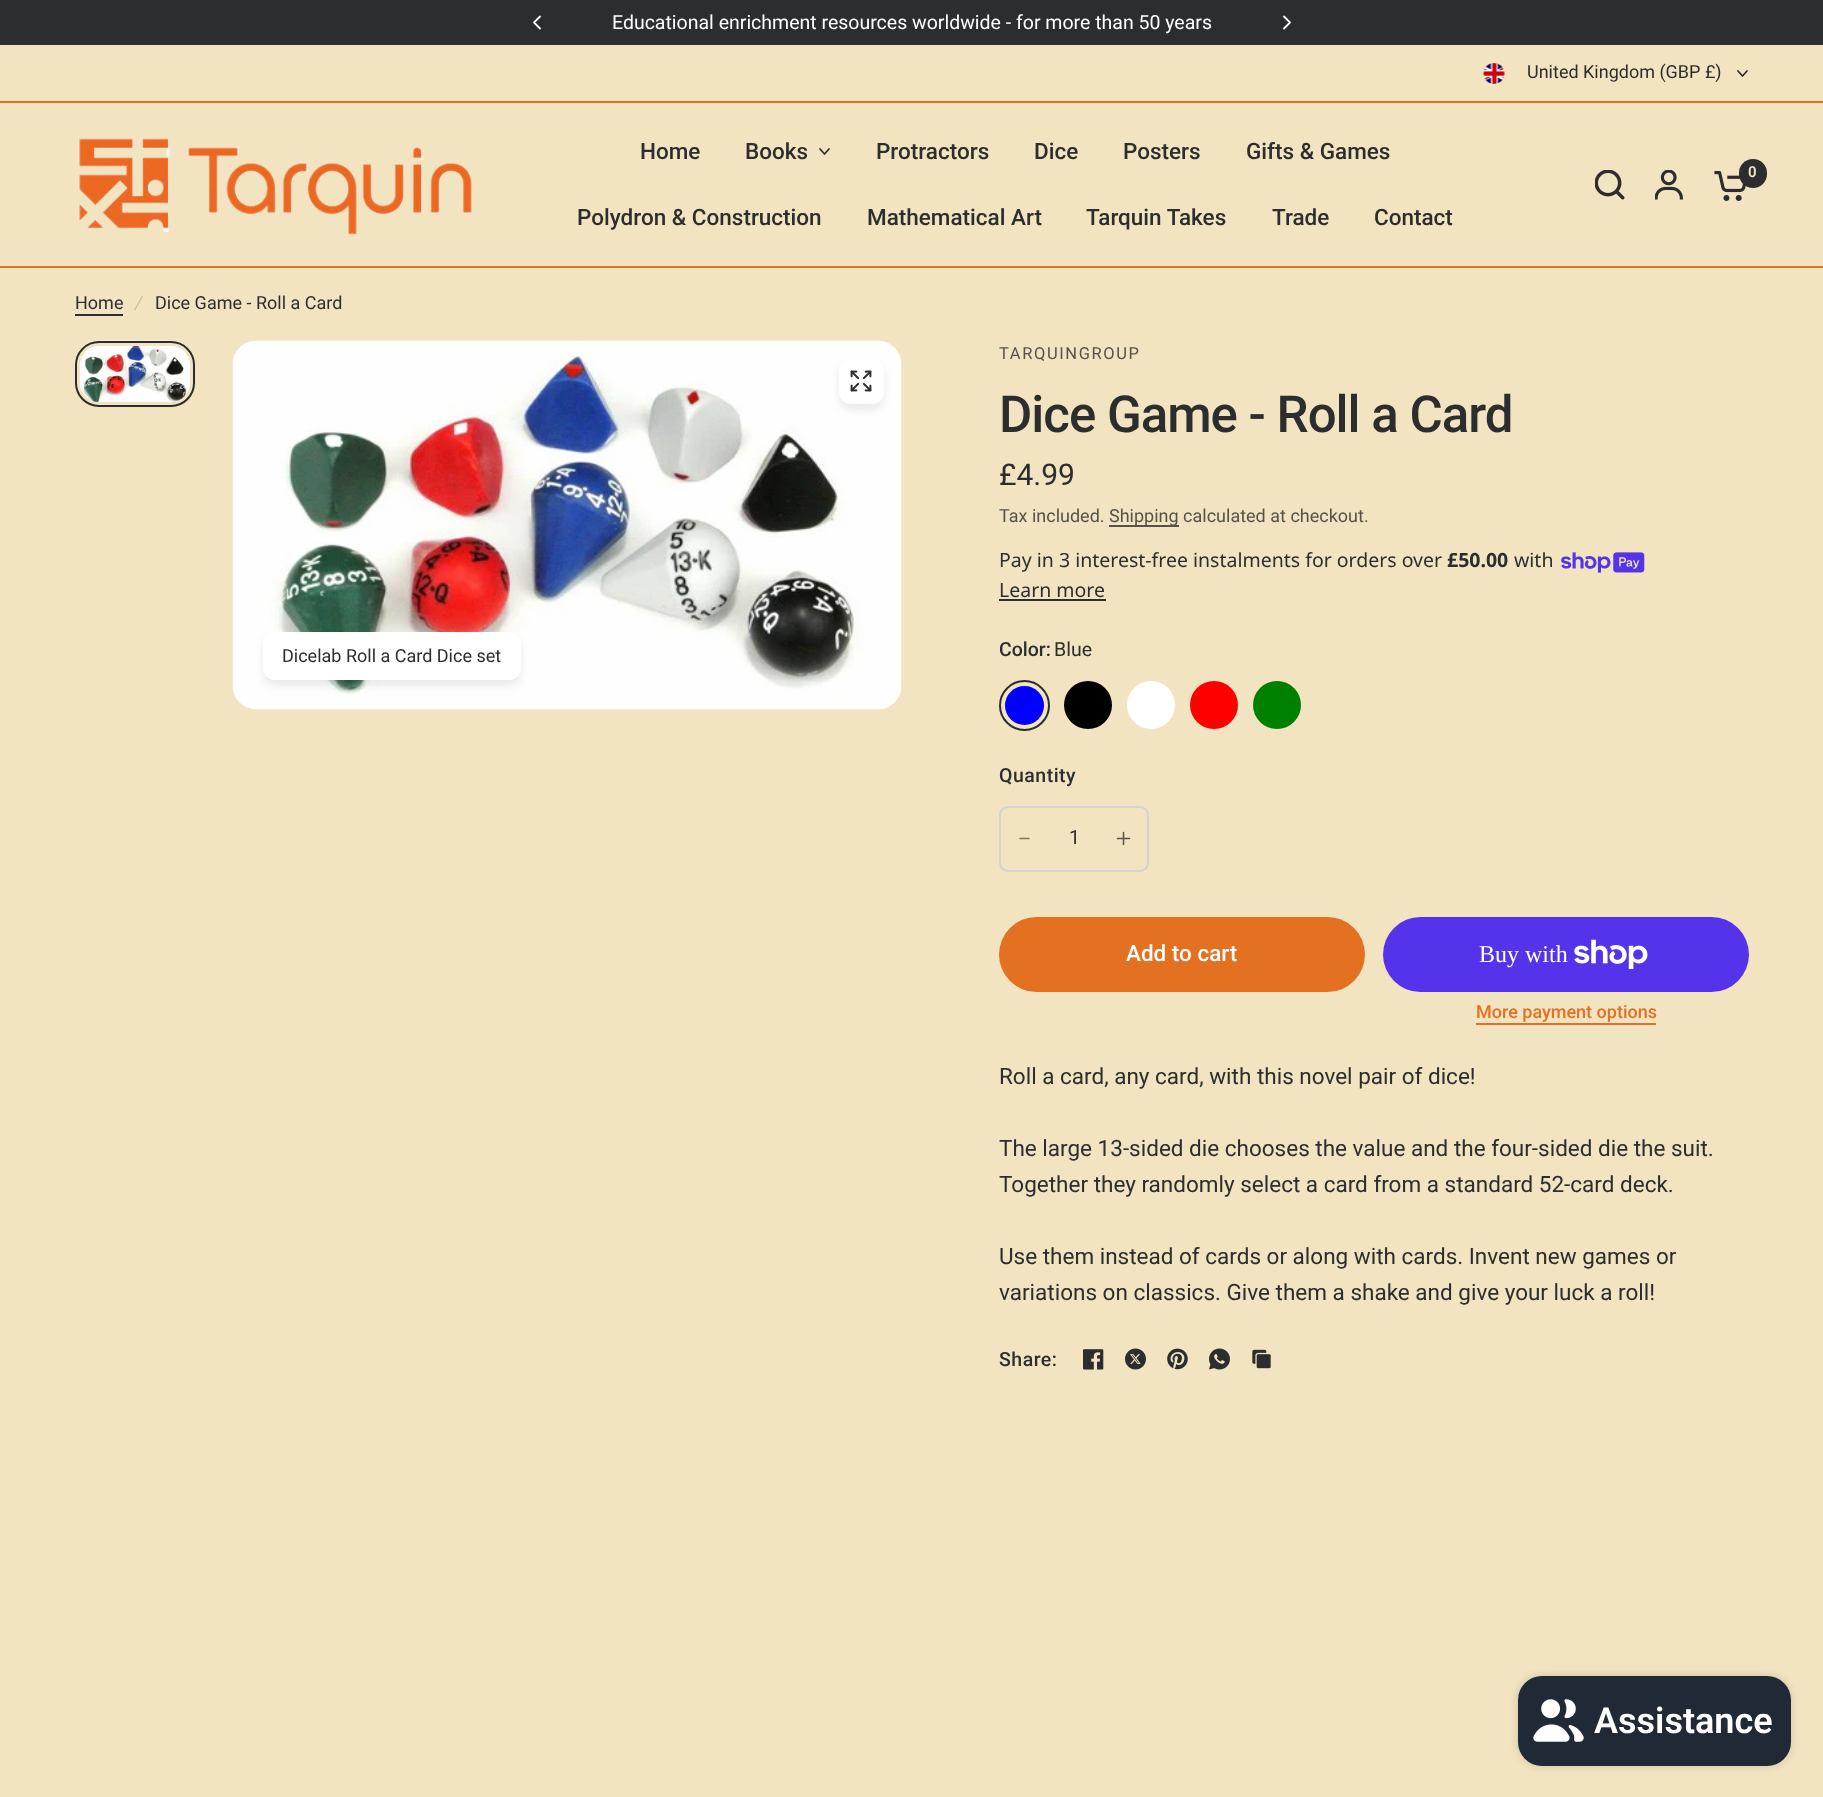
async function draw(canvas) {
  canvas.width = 1823;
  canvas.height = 1797;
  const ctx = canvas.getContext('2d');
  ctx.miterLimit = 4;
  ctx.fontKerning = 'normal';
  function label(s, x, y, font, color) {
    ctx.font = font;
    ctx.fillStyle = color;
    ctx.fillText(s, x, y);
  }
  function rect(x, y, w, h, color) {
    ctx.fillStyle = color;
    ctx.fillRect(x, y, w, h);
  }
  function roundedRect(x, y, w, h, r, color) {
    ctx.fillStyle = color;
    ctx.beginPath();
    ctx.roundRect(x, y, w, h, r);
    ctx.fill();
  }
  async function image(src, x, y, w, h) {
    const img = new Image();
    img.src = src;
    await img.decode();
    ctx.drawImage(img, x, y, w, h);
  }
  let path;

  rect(0, 0, 1823, 1797, '#2c2d2e');
  path = new Path2D('M540 16.5L534 22.5L540 28.5');
  ctx.strokeStyle = '#fff';
  ctx.lineWidth = 1.8;
  ctx.lineCap = 'round';
  ctx.lineJoin = 'round';
  ctx.stroke(path);
  label('Educational enrichment resources worldwide - for more than 50 years', 612, 29, '19.5px Roboto', '#fff');
  path = new Path2D('M1284 16.5L1290 22.5L1284 28.5');
  ctx.stroke(path);
  rect(0, 45, 1823, 56, '#f2e4c0');
  rect(0, 101, 1823, 2, '#e47022');
  await image('assets/img1.png', 1483, 63, 22, 21);
  label('United Kingdom (GBP £)', 1527, 78, '18px Roboto', '#2c2d2e');
  path = new Path2D('M1747 71L1742.5 76L1738 71');
  ctx.strokeStyle = '#2c2d2e';
  ctx.lineWidth = 1.7;
  ctx.stroke(path);
  rect(0, 103, 1823, 163, '#f2e4c0');
  await image('assets/img2.png', 78, 138, 394, 97);
  label('Home', 640, 159, '500 22.5px Roboto', '#2c2d2e');
  label('Books', 745, 159, '500 22.5px Roboto', '#2c2d2e');
  path = new Path2D('M829 149L824.5 154L820 149');
  ctx.stroke(path);
  label('Protractors', 876, 159, '500 22.5px Roboto', '#2c2d2e');
  label('Dice', 1034, 159, '500 22.5px Roboto', '#2c2d2e');
  label('Posters', 1123, 159, '500 22.5px Roboto', '#2c2d2e');
  label('Gifts & Games', 1246, 159, '500 22.5px Roboto', '#2c2d2e');
  label('Polydron & Construction', 577, 225, '500 22.5px Roboto', '#2c2d2e');
  label('Mathematical Art', 867, 225, '500 22.5px Roboto', '#2c2d2e');
  label('Tarquin Takes', 1086, 225, '500 22.5px Roboto', '#2c2d2e');
  label('Trade', 1272, 225, '500 22.5px Roboto', '#2c2d2e');
  label('Contact', 1374, 225, '500 22.5px Roboto', '#2c2d2e');
  await image('assets/img3.png', 1595, 170, 30, 30);
  await image('assets/img4.png', 1655, 170, 28, 30);
  await image('assets/img5.png', 1714, 171, 32, 30);
  roundedRect(1739, 159, 28, 29, 14, '#2c2d2e');
  label('0', 1748, 177, '600 15px Roboto', '#f2e4c0');
  rect(0, 266, 1823, 2, '#e47022');
  rect(0, 268, 1823, 1529, '#f2e4c0');
  label('Home', 75, 309, '18px Roboto', '#2c2d2e');
  rect(75, 314, 48, 2, '#2c2d2e');
  label('/', 135, 309, 'italic 18px Roboto', '#cabfa3');
  label('Dice Game - Roll a Card', 155, 309, '18px Roboto', '#2c2d2e');
  await image('assets/img6.png', 75, 340, 120, 67);
  ctx.beginPath();
  ctx.roundRect(77.5, 343.5, 115, 61, 21.5);
  ctx.strokeStyle = '#f2e4c0';
  ctx.lineWidth = 5;
  ctx.lineJoin = 'miter';
  ctx.stroke();
  ctx.beginPath();
  ctx.roundRect(76, 342, 118, 64, 23);
  ctx.strokeStyle = '#2c2d2e';
  ctx.lineWidth = 2;
  ctx.stroke();
  await image('assets/img7.png', 232, 340, 670, 370);
  ctx.fillStyle = '#00000014';
  ctx.filter = 'blur(4.5px)';
  ctx.beginPath();
  ctx.roundRect(839, 365, 45, 45, 12);
  ctx.fill();
  ctx.filter = 'none';
  roundedRect(839, 359, 45, 45, 12, '#fff');
  await image('assets/img8.png', 850, 370, 22, 22);
  ctx.fillStyle = '#00000014';
  ctx.filter = 'blur(4.5px)';
  ctx.beginPath();
  ctx.roundRect(263, 638, 258, 48, 12);
  ctx.fill();
  ctx.filter = 'none';
  roundedRect(263, 632, 258, 48, 12, '#fff');
  label('Dicelab Roll a Card Dice set', 282, 662, '18px Roboto', '#2c2d2e');
  ctx.letterSpacing = '1.6px';
  label('TARQUINGROUP', 999, 359, '16.5px Roboto', '#54524b');
  ctx.letterSpacing = '-1px';
  label('Dice Game - Roll a Card', 999, 432, '500 51px Roboto', '#2c2d2e');
  ctx.letterSpacing = '0px';
  label('£4.99', 999, 485, '30px Roboto', '#2c2d2e');
  label('Tax included.', 999, 522, '18px Roboto', '#54524b');
  rect(1109, 525, 70, 2, '#54524b');
  label('Shipping calculated at checkout.', 1109, 522, '18px Roboto', '#54524b');
  label('Pay in 3 interest-free instalments for orders over', 999, 567, '19.5px Noto Sans', '#2c2d2e');
  label('£50.00', 1447, 567, 'bold 19.5px Noto Sans', '#2c2d2e');
  label('with', 1514, 567, '19.5px Noto Sans', '#2c2d2e');
  await image('assets/img9.png', 1561, 552, 84, 21);
  label('Learn more', 999, 597, '19.5px Noto Sans', '#2c2d2e');
  rect(999, 599, 107, 2, '#2c2d2e');
  label('Color:', 999, 656, '500 19.5px Roboto', '#2c2d2e');
  label('Blue', 1054, 656, '19.5px Roboto', '#2c2d2e');
  ctx.beginPath();
  ctx.arc(1024.5, 705.5, 24.5, 0, 2 * Math.PI);
  ctx.stroke();
  ctx.fillStyle = '#00f';
  ctx.beginPath();
  ctx.arc(1024.5, 705.5, 19.5, 0, 2 * Math.PI);
  ctx.fill();
  ctx.fillStyle = '#000';
  ctx.beginPath();
  ctx.arc(1088, 705, 24, 0, 2 * Math.PI);
  ctx.fill();
  ctx.fillStyle = '#fff';
  ctx.beginPath();
  ctx.arc(1151, 705, 24, 0, 2 * Math.PI);
  ctx.fill();
  ctx.fillStyle = '#f00';
  ctx.beginPath();
  ctx.arc(1214, 705, 24, 0, 2 * Math.PI);
  ctx.fill();
  ctx.fillStyle = '#008000';
  ctx.beginPath();
  ctx.arc(1277, 705, 24, 0, 2 * Math.PI);
  ctx.fill();
  ctx.letterSpacing = '0.5px';
  label('Quantity', 999, 782, '500 19.5px Roboto', '#2c2d2e');
  ctx.beginPath();
  ctx.roundRect(1000, 807, 148, 64, 8);
  ctx.strokeStyle = '#d3d3d3';
  ctx.stroke();
  path = new Path2D('M1020 838.5H1029');
  ctx.strokeStyle = '#7b7668';
  ctx.lineWidth = 1.5;
  ctx.lineJoin = 'round';
  ctx.stroke(path);
  ctx.letterSpacing = '0px';
  label('1', 1069, 844, '19.5px Roboto', '#2c2d2e');
  path = new Path2D('M1117.5 838.5H1129.5M1123.5 832.5V844.5');
  ctx.strokeStyle = '#54524b';
  ctx.stroke(path);
  roundedRect(999, 917, 366, 75, 37.5, '#e47022');
  label('Add to cart', 1126, 961, '500 22.5px Roboto', '#fff');
  roundedRect(1383, 917, 366, 75, 37.5, '#5433eb');
  label('Buy with', 1479, 962, '24px Liberation Serif', '#fff');
  await image('assets/img10.png', 1574, 939, 74, 30);
  label('More payment options', 1476, 1018, '500 18px Roboto', '#e47022');
  rect(1476, 1023, 180, 2, '#e47022');
  label('Roll a card, any card, with this novel pair of dice!', 999, 1084, '22.5px Roboto', '#2c2d2e');
  label('The large 13-sided die chooses the value and the four-sided die the suit.', 999, 1156, '22.5px Roboto', '#2c2d2e');
  label('Together they randomly select a card from a standard 52-card deck.', 999, 1192, '22.5px Roboto', '#2c2d2e');
  label('Use them instead of cards or along with cards. Invent new games or', 999, 1264, '22.5px Roboto', '#2c2d2e');
  label('variations on classics. Give them a shake and give your luck a roll!', 999, 1300, '22.5px Roboto', '#2c2d2e');
  ctx.letterSpacing = '0.5px';
  label('Share:', 999, 1366, '500 19.5px Roboto', '#2c2d2e');
  await image('assets/img11.png', 1083, 1349, 21, 21);
  await image('assets/img12.png', 1125, 1348, 21, 22);
  await image('assets/img13.png', 1167, 1348, 21, 22);
  await image('assets/img14.png', 1209, 1348, 21, 22);
  await image('assets/img15.png', 1252, 1349, 19, 20);
  ctx.fillStyle = '#00000026';
  ctx.filter = 'blur(4px)';
  ctx.beginPath();
  ctx.roundRect(1518, 1676, 273, 90, 24);
  ctx.fill();
  ctx.filter = 'none';
  roundedRect(1518, 1676, 273, 90, 24, '#202a36');
  await image('assets/img16.png', 1533, 1699, 51, 43);
  ctx.letterSpacing = '0px';
  label('Assistance', 1594, 1733, '600 36px Roboto', '#fff');
}

draw(document.querySelector('canvas'));
